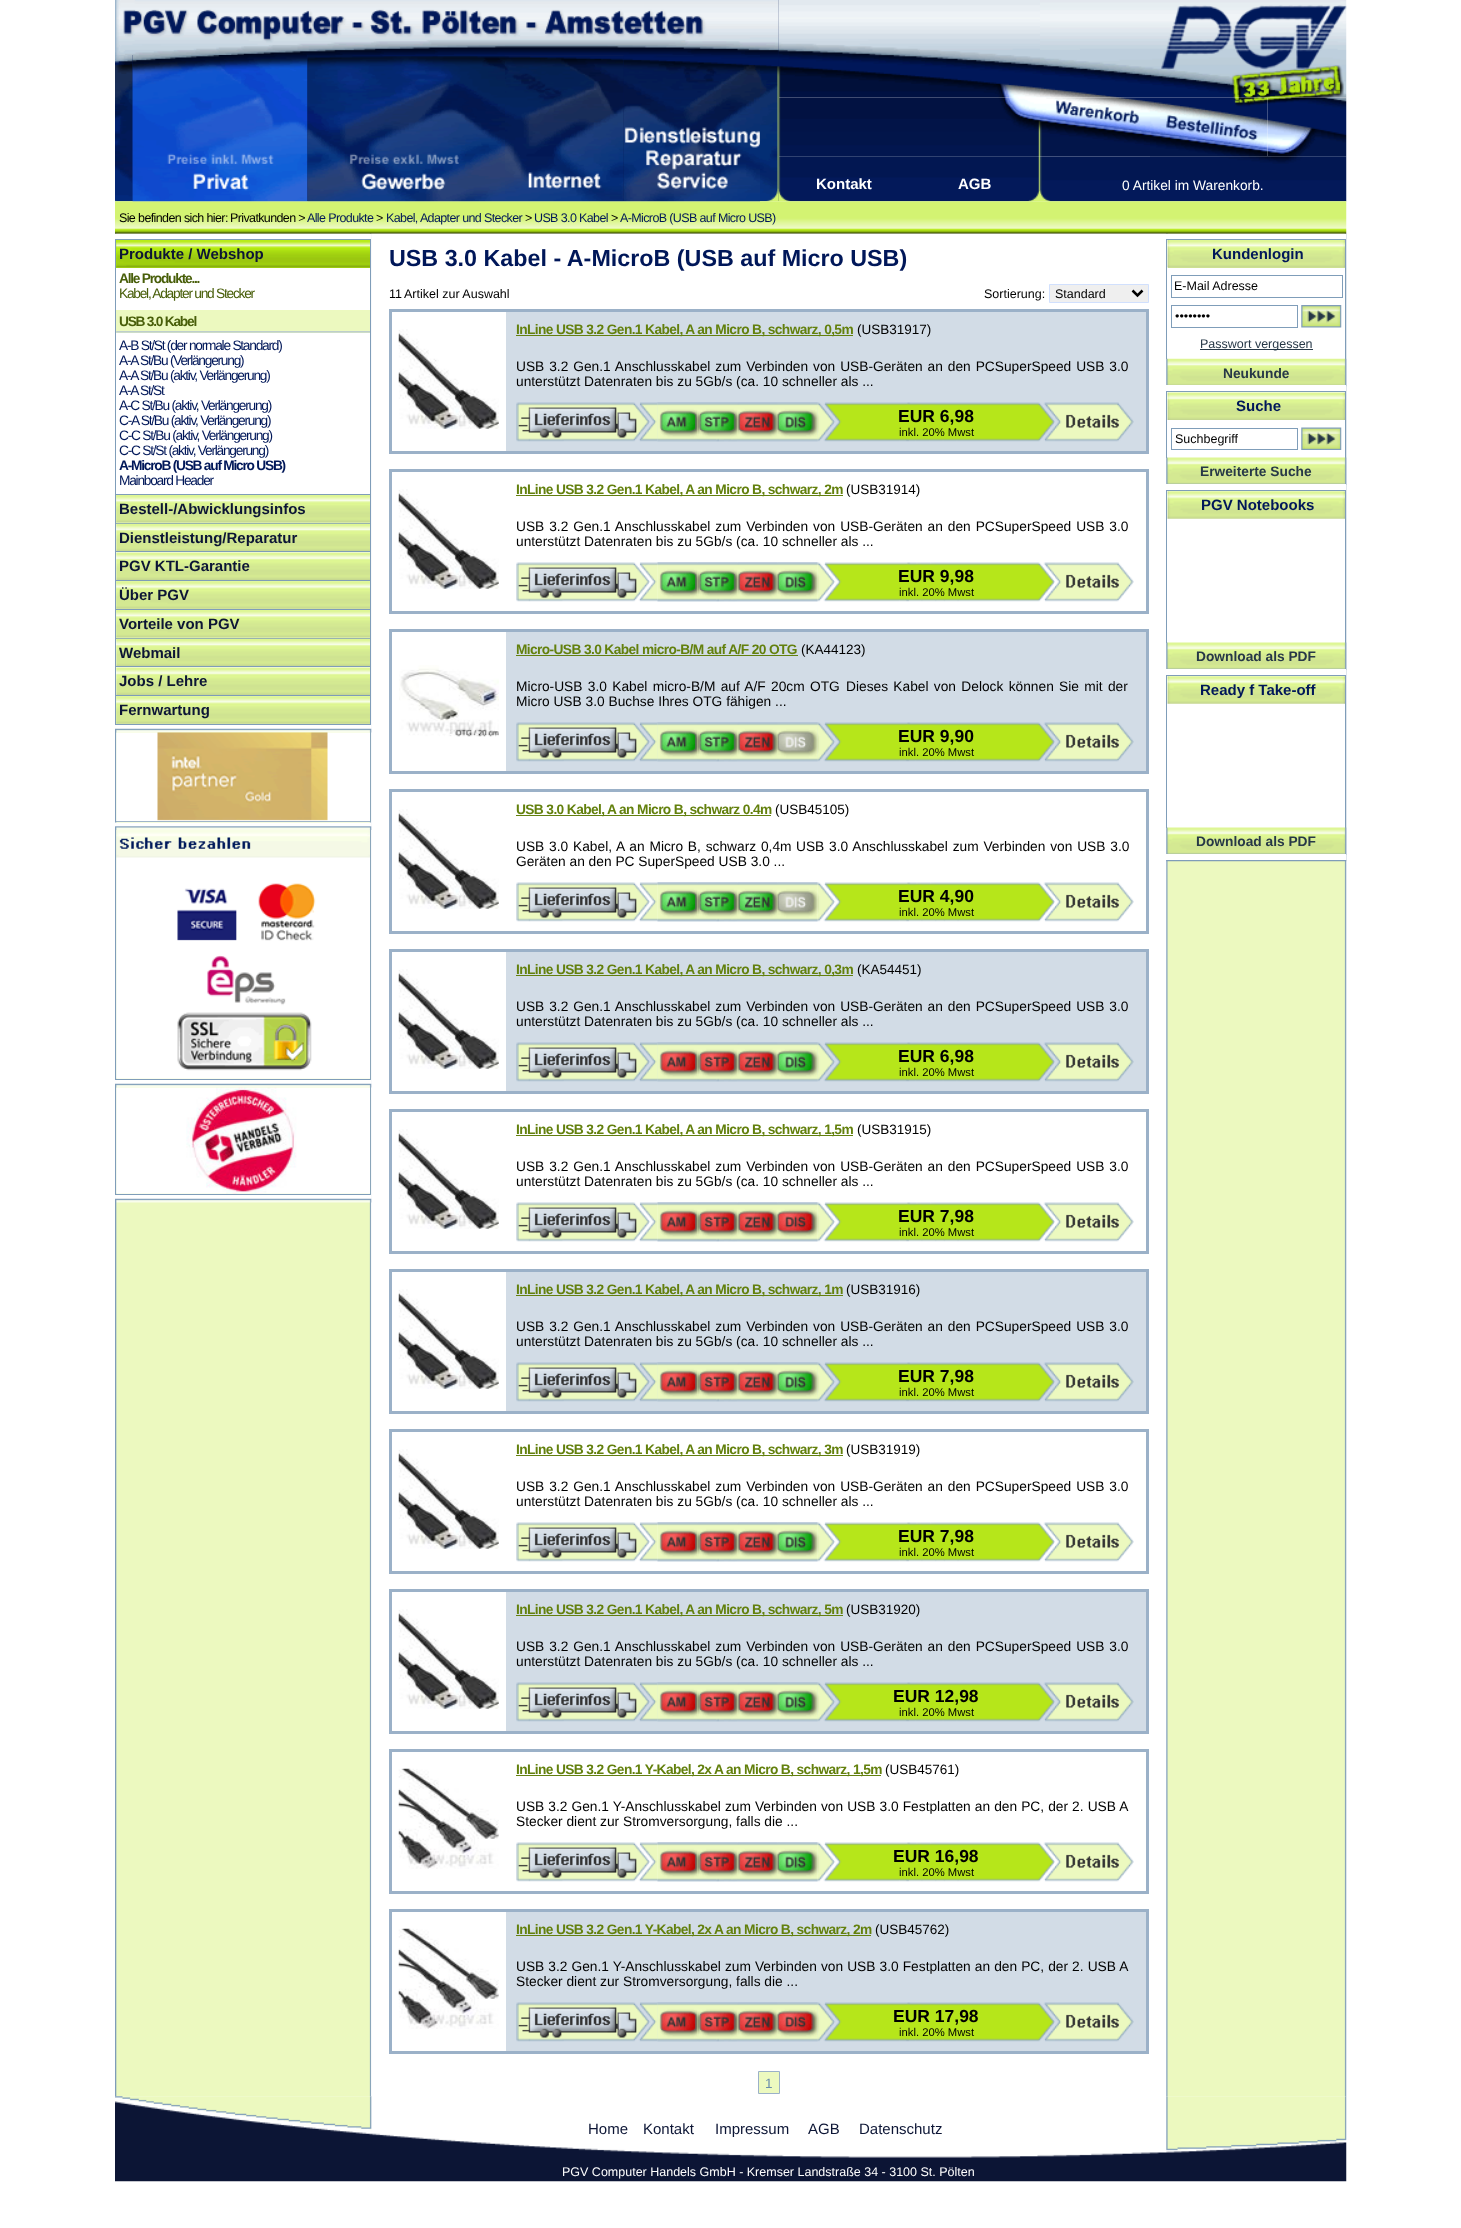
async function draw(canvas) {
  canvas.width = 1461;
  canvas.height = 2228;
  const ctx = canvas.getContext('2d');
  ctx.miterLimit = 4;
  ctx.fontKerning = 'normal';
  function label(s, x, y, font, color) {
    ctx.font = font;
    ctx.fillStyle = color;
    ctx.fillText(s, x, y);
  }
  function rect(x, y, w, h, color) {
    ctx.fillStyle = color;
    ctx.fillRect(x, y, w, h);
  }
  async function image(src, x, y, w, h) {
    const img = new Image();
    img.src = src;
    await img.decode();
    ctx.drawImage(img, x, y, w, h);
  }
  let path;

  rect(0, 0, 1461, 2228, '#fff');
  rect(132, 0, 647, 201, '#061953');
  await image('assets/img1.png', 115, 0, 664, 55);
  await image('assets/img2.png', 115, 55, 18, 147);
  await image('assets/img7.png', 760, 55, 19, 147);
  await image('assets/img8.png', 778, 0, 262, 98);
  await image('assets/img10.png', 778, 97, 262, 60);
  await image('assets/img14.png', 778, 156, 262, 46);
  await image('assets/img9.png', 1040, 0, 307, 98);
  await image('assets/img13.png', 1267, 97, 80, 60);
  await image('assets/img15.png', 1040, 156, 307, 46);
  await image('assets/img16.png', 115, 201, 1232, 33);
  await image('assets/img3.png', 132, 55, 176, 147);
  await image('assets/img4.png', 307, 55, 198, 147);
  await image('assets/img5.png', 505, 56, 119, 146);
  await image('assets/img6.png', 623, 55, 137, 147);
  await image('assets/img11.png', 1040, 97, 110, 59);
  await image('assets/img12.png', 1150, 97, 118, 60);
  label('Kontakt', 816, 189, 'bold 15px Liberation Sans', '#fff');
  label('AGB', 958, 189, 'bold 15px Liberation Sans', '#fff');
  label('0 Artikel im Warenkorb.', 1122, 190, '13.75px Liberation Sans', '#fff');
  ctx.letterSpacing = '-0.62px';
  label('Sie befinden sich hier:', 119, 222, '12.5px Liberation Sans', '#000');
  label('Privatkunden >', 230, 222, '12.5px Liberation Sans', '#000');
  label('Alle Produkte', 307, 222, '12.5px Liberation Sans', '#001759');
  label('>', 376, 222, '12.5px Liberation Sans', '#000');
  label('Kabel, Adapter und Stecker', 386, 222, '12.5px Liberation Sans', '#001759');
  label('>', 525, 222, '12.5px Liberation Sans', '#000');
  label('USB 3.0 Kabel', 534, 222, '12.5px Liberation Sans', '#001759');
  label('>', 611, 222, '12.5px Liberation Sans', '#000');
  label('A-MicroB (USB auf Micro USB)', 620, 222, '12.5px Liberation Sans', '#001759');
  await image('assets/img17.png', 115, 233, 257, 1864);
  rect(115, 234, 256, 5, '#fff');
  rect(116, 268, 254, 427, '#fff');
  ctx.strokeStyle = '#7f9db9';
  ctx.strokeRect(115.5, 239.5, 255, 485);
  rect(116, 240, 254, 28, '#b3e813');
  await image('assets/img18.png', 116, 240, 254, 28);
  ctx.letterSpacing = '0px';
  label('Produkte / Webshop', 119, 259, 'bold 15px Liberation Sans', '#0c1535');
  ctx.letterSpacing = '-1.25px';
  label('Alle Produkte...', 119, 283, 'bold 13.75px Liberation Sans', '#485e09');
  label('Kabel, Adapter und Stecker', 119, 298, '13.75px Liberation Sans', '#485e09');
  rect(116, 310, 254, 23, '#ecf9bf');
  await image('assets/img19.png', 116, 331, 254, 2);
  label('USB 3.0 Kabel', 119, 326, 'bold 13.75px Liberation Sans', '#485e09');
  label('A-B St/St (der normale Standard)', 119, 350, '13.75px Liberation Sans', '#001759');
  label('A-A St/Bu (Verlängerung)', 119, 365, '13.75px Liberation Sans', '#001759');
  label('A-A St/Bu (aktiv, Verlängerung)', 119, 380, '13.75px Liberation Sans', '#001759');
  label('A-A St/St', 119, 395, '13.75px Liberation Sans', '#001759');
  label('A-C St/Bu (aktiv, Verlängerung)', 119, 410, '13.75px Liberation Sans', '#001759');
  label('C-A St/Bu (aktiv, Verlängerung)', 119, 425, '13.75px Liberation Sans', '#001759');
  label('C-C St/Bu (aktiv, Verlängerung)', 119, 440, '13.75px Liberation Sans', '#001759');
  label('C-C St/St (aktiv, Verlängerung)', 119, 455, '13.75px Liberation Sans', '#001759');
  label('A-MicroB (USB auf Micro USB)', 119, 470, 'bold 13.75px Liberation Sans', '#001759');
  label('Mainboard Header', 119, 485, '13.75px Liberation Sans', '#001759');
  rect(116, 494, 254, 1, '#7f9db9');
  rect(116, 495, 254, 28, '#eaf9bc');
  await image('assets/img20.png', 116, 495, 254, 28);
  ctx.letterSpacing = '0px';
  label('Bestell-/Abwicklungsinfos', 119, 514, 'bold 15px Liberation Sans', '#0c1535');
  rect(116, 523, 254, 1, '#7f9db9');
  await image('assets/img21.png', 116, 523, 254, 28);
  label('Dienstleistung/Reparatur', 119, 543, 'bold 15px Liberation Sans', '#0c1535');
  rect(116, 551, 254, 1, '#7f9db9');
  await image('assets/img22.png', 116, 552, 254, 28);
  label('PGV KTL-Garantie', 119, 571, 'bold 15px Liberation Sans', '#0c1535');
  rect(116, 580, 254, 1, '#7f9db9');
  rect(116, 581, 254, 28, '#eaf9bc');
  await image('assets/img23.png', 116, 581, 254, 28);
  label('Über PGV', 119, 600, 'bold 15px Liberation Sans', '#0c1535');
  rect(116, 609, 254, 1, '#7f9db9');
  rect(116, 610, 254, 28, '#eaf9bc');
  await image('assets/img20.png', 116, 610, 254, 28);
  label('Vorteile von PGV', 119, 629, 'bold 15px Liberation Sans', '#0c1535');
  rect(116, 638, 254, 1, '#7f9db9');
  await image('assets/img21.png', 116, 638, 254, 28);
  label('Webmail', 119, 658, 'bold 15px Liberation Sans', '#0c1535');
  rect(116, 666, 254, 1, '#7f9db9');
  await image('assets/img22.png', 116, 667, 254, 28);
  label('Jobs / Lehre', 119, 686, 'bold 15px Liberation Sans', '#0c1535');
  rect(116, 695, 254, 1, '#7f9db9');
  rect(116, 696, 254, 28, '#eaf9bc');
  await image('assets/img24.png', 116, 696, 254, 28);
  label('Fernwartung', 119, 715, 'bold 15px Liberation Sans', '#0c1535');
  await image('assets/img30.png', 371, 233, 976, 1864);
  await image('assets/img25.png', 115, 725, 257, 8);
  rect(116, 821, 254, 1, '#7f9db9');
  await image('assets/img26.png', 116, 732, 254, 90);
  await image('assets/img27.png', 115, 822, 257, 8);
  rect(116, 1079, 254, 1, '#7f9db9');
  await image('assets/img28.png', 116, 830, 254, 249);
  await image('assets/img25.png', 115, 1080, 257, 8);
  rect(116, 1194, 254, 1, '#7f9db9');
  await image('assets/img29.png', 116, 1087, 254, 107);
  await image('assets/img25.png', 115, 1195, 257, 8);
  label('USB 3.0 Kabel - A-MicroB (USB auf Micro USB)', 389, 266, 'bold 23.3px Liberation Sans', '#001759');
  label('11', 389, 298, '12.5px Liberation Sans', '#000');
  label('Artikel zur Auswahl', 404, 298, '12.5px Liberation Sans', '#000');
  label('Sortierung:', 984, 298, '12.5px Liberation Sans', '#000');
  ctx.fillStyle = '#efefef';
  ctx.beginPath();
  ctx.rect(1049.5, 284.5, 99, 18);
  ctx.fill();
  ctx.strokeStyle = '#d1e0fd';
  ctx.stroke();
  path = new Path2D('M1132.5 290.5L1137.5 295.5L1142.5 290.5');
  ctx.strokeStyle = '#000';
  ctx.lineWidth = 2.5;
  ctx.stroke(path);
  label('Standard', 1055, 298, '12.5px Liberation Sans', '#000');
  rect(389, 309, 760, 3, '#9bb1c8');
  rect(389, 451, 117, 3, '#9bb1c8');
  rect(389, 309, 3, 145, '#9bb1c8');
  await image('assets/img31.png', 398, 329, 101, 100);
  rect(506, 312, 640, 139, '#d2dce6');
  rect(1146, 309, 3, 145, '#9bb1c8');
  rect(516, 335, 337, 1, '#63800d');
  ctx.letterSpacing = '-0.62px';
  label('InLine USB 3.2 Gen.1 Kabel, A an Micro B, schwarz, 0,5m', 516, 334, 'bold 13.75px Liberation Sans', '#63800d');
  ctx.letterSpacing = '0px';
  label('(USB31917)', 857, 334, '13.5px Liberation Sans', '#000');
  ctx.wordSpacing = '1.1px';
  label('USB 3.2 Gen.1 Anschlusskabel zum Verbinden von USB-Geräten an den PCSuperSpeed USB 3.0', 516, 371, '13.75px Liberation Sans', '#000');
  ctx.wordSpacing = '0px';
  label('unterstützt Datenraten bis zu 5Gb/s (ca. 10 schneller als ...', 516, 386, '13.75px Liberation Sans', '#000');
  rect(506, 451, 643, 3, '#9bb1c8');
  await image('assets/img32.png', 516, 402, 142, 40);
  await image('assets/img33.png', 657, 402, 161, 40);
  await image('assets/img34.png', 657, 402, 41, 40);
  await image('assets/img35.png', 697, 402, 41, 40);
  await image('assets/img36.png', 737, 402, 41, 40);
  await image('assets/img38.png', 817, 402, 238, 40);
  await image('assets/img37.png', 777, 402, 41, 40);
  label('EUR 6,98', 898, 422, 'bold 17.5px Liberation Sans', '#000');
  label('inkl. 20% Mwst', 899, 436, '11.25px Liberation Sans', '#000');
  await image('assets/img39.png', 1055, 402, 79, 40);
  rect(389, 469, 760, 3, '#9bb1c8');
  rect(389, 611, 117, 3, '#9bb1c8');
  rect(389, 469, 3, 145, '#9bb1c8');
  await image('assets/img31.png', 398, 489, 101, 100);
  rect(1146, 469, 3, 145, '#9bb1c8');
  rect(516, 495, 327, 1, '#63800d');
  ctx.letterSpacing = '-0.62px';
  label('InLine USB 3.2 Gen.1 Kabel, A an Micro B, schwarz, 2m', 516, 494, 'bold 13.75px Liberation Sans', '#63800d');
  ctx.letterSpacing = '0px';
  label('(USB31914)', 846, 494, '13.5px Liberation Sans', '#000');
  ctx.wordSpacing = '1.1px';
  label('USB 3.2 Gen.1 Anschlusskabel zum Verbinden von USB-Geräten an den PCSuperSpeed USB 3.0', 516, 531, '13.75px Liberation Sans', '#000');
  ctx.wordSpacing = '0px';
  label('unterstützt Datenraten bis zu 5Gb/s (ca. 10 schneller als ...', 516, 546, '13.75px Liberation Sans', '#000');
  rect(506, 611, 643, 3, '#9bb1c8');
  await image('assets/img40.png', 516, 562, 142, 40);
  await image('assets/img41.png', 657, 562, 161, 40);
  await image('assets/img42.png', 657, 562, 41, 40);
  await image('assets/img43.png', 697, 562, 41, 40);
  await image('assets/img44.png', 737, 562, 41, 40);
  await image('assets/img46.png', 817, 562, 238, 40);
  await image('assets/img45.png', 777, 562, 41, 40);
  label('EUR 9,98', 898, 582, 'bold 17.5px Liberation Sans', '#000');
  label('inkl. 20% Mwst', 899, 596, '11.25px Liberation Sans', '#000');
  await image('assets/img47.png', 1055, 562, 79, 40);
  rect(389, 629, 760, 3, '#9bb1c8');
  rect(389, 771, 117, 3, '#9bb1c8');
  rect(389, 629, 3, 145, '#9bb1c8');
  await image('assets/img48.png', 399, 665, 100, 72);
  rect(506, 632, 640, 139, '#d2dce6');
  rect(1146, 629, 3, 145, '#9bb1c8');
  ctx.letterSpacing = '-0.62px';
  label('Micro-USB 3.0 Kabel micro-B/M auf A/F 20 OTG', 516, 654, 'bold 13.75px Liberation Sans', '#63800d');
  rect(516, 655, 282, 1, '#63800d');
  ctx.letterSpacing = '0px';
  label('(KA44123)', 801, 654, '13.5px Liberation Sans', '#000');
  ctx.wordSpacing = '1.5px';
  label('Micro-USB 3.0 Kabel micro-B/M auf A/F 20cm OTG', 516, 691, '13.75px Liberation Sans', '#000');
  label('Dieses Kabel von Delock können Sie mit der', 846, 691, '13.75px Liberation Sans', '#000');
  ctx.wordSpacing = '0px';
  label('Micro USB 3.0 Buchse Ihres OTG fähigen ...', 516, 706, '13.75px Liberation Sans', '#000');
  rect(506, 771, 643, 3, '#9bb1c8');
  await image('assets/img32.png', 516, 722, 142, 40);
  await image('assets/img33.png', 657, 722, 161, 40);
  await image('assets/img34.png', 657, 722, 41, 40);
  await image('assets/img35.png', 697, 722, 41, 40);
  await image('assets/img36.png', 737, 722, 41, 40);
  await image('assets/img38.png', 817, 722, 238, 40);
  await image('assets/img49.png', 777, 722, 41, 40);
  label('EUR 9,90', 898, 742, 'bold 17.5px Liberation Sans', '#000');
  label('inkl. 20% Mwst', 899, 756, '11.25px Liberation Sans', '#000');
  await image('assets/img39.png', 1055, 722, 79, 40);
  rect(389, 789, 760, 3, '#9bb1c8');
  rect(389, 931, 117, 3, '#9bb1c8');
  rect(389, 789, 3, 145, '#9bb1c8');
  await image('assets/img31.png', 398, 809, 101, 100);
  rect(1146, 789, 3, 145, '#9bb1c8');
  rect(516, 815, 255, 1, '#63800d');
  ctx.letterSpacing = '-0.62px';
  label('USB 3.0 Kabel, A an Micro B, schwarz 0.4m', 516, 814, 'bold 13.75px Liberation Sans', '#63800d');
  ctx.letterSpacing = '0px';
  label('(USB45105)', 775, 814, '13.5px Liberation Sans', '#000');
  ctx.wordSpacing = '1px';
  label('USB 3.0 Kabel, A an Micro B, schwarz 0,4m', 516, 851, '13.75px Liberation Sans', '#000');
  label('USB 3.0 Anschlusskabel zum Verbinden von USB 3.0', 796, 851, '13.75px Liberation Sans', '#000');
  ctx.wordSpacing = '0px';
  label('Geräten an den PC SuperSpeed USB 3.0 ...', 516, 866, '13.75px Liberation Sans', '#000');
  rect(506, 931, 643, 3, '#9bb1c8');
  await image('assets/img50.png', 516, 882, 142, 40);
  await image('assets/img41.png', 657, 882, 161, 40);
  await image('assets/img51.png', 657, 882, 41, 40);
  await image('assets/img52.png', 697, 882, 41, 40);
  await image('assets/img53.png', 737, 882, 41, 40);
  await image('assets/img55.png', 817, 882, 238, 40);
  await image('assets/img54.png', 777, 882, 41, 40);
  label('EUR 4,90', 898, 902, 'bold 17.5px Liberation Sans', '#000');
  label('inkl. 20% Mwst', 899, 916, '11.25px Liberation Sans', '#000');
  await image('assets/img56.png', 1055, 882, 79, 40);
  rect(389, 949, 760, 3, '#9bb1c8');
  rect(389, 1091, 117, 3, '#9bb1c8');
  rect(389, 949, 3, 145, '#9bb1c8');
  await image('assets/img31.png', 398, 969, 101, 100);
  rect(506, 952, 640, 139, '#d2dce6');
  rect(1146, 949, 3, 145, '#9bb1c8');
  rect(516, 975, 337, 1, '#63800d');
  ctx.letterSpacing = '-0.62px';
  label('InLine USB 3.2 Gen.1 Kabel, A an Micro B, schwarz, 0,3m', 516, 974, 'bold 13.75px Liberation Sans', '#63800d');
  ctx.letterSpacing = '0px';
  label('(KA54451)', 857, 974, '13.5px Liberation Sans', '#000');
  ctx.wordSpacing = '1.1px';
  label('USB 3.2 Gen.1 Anschlusskabel zum Verbinden von USB-Geräten an den PCSuperSpeed USB 3.0', 516, 1011, '13.75px Liberation Sans', '#000');
  ctx.wordSpacing = '0px';
  label('unterstützt Datenraten bis zu 5Gb/s (ca. 10 schneller als ...', 516, 1026, '13.75px Liberation Sans', '#000');
  rect(506, 1091, 643, 3, '#9bb1c8');
  await image('assets/img32.png', 516, 1042, 142, 40);
  await image('assets/img33.png', 657, 1042, 161, 40);
  await image('assets/img57.png', 657, 1042, 41, 40);
  await image('assets/img58.png', 697, 1042, 41, 40);
  await image('assets/img59.png', 737, 1042, 41, 40);
  await image('assets/img38.png', 817, 1042, 238, 40);
  await image('assets/img37.png', 777, 1042, 41, 40);
  label('EUR 6,98', 898, 1062, 'bold 17.5px Liberation Sans', '#000');
  label('inkl. 20% Mwst', 899, 1076, '11.25px Liberation Sans', '#000');
  await image('assets/img39.png', 1055, 1042, 79, 40);
  rect(389, 1109, 760, 3, '#9bb1c8');
  rect(389, 1251, 117, 3, '#9bb1c8');
  rect(389, 1109, 3, 145, '#9bb1c8');
  await image('assets/img60.png', 398, 1129, 101, 100);
  rect(1146, 1109, 3, 145, '#9bb1c8');
  rect(516, 1135, 337, 1, '#63800d');
  ctx.letterSpacing = '-0.62px';
  label('InLine USB 3.2 Gen.1 Kabel, A an Micro B, schwarz, 1,5m', 516, 1134, 'bold 13.75px Liberation Sans', '#63800d');
  ctx.letterSpacing = '0px';
  label('(USB31915)', 857, 1134, '13.5px Liberation Sans', '#000');
  ctx.wordSpacing = '1.1px';
  label('USB 3.2 Gen.1 Anschlusskabel zum Verbinden von USB-Geräten an den PCSuperSpeed USB 3.0', 516, 1171, '13.75px Liberation Sans', '#000');
  ctx.wordSpacing = '0px';
  label('unterstützt Datenraten bis zu 5Gb/s (ca. 10 schneller als ...', 516, 1186, '13.75px Liberation Sans', '#000');
  rect(506, 1251, 643, 3, '#9bb1c8');
  await image('assets/img50.png', 516, 1202, 142, 40);
  await image('assets/img41.png', 657, 1202, 161, 40);
  await image('assets/img61.png', 657, 1202, 41, 40);
  await image('assets/img62.png', 697, 1202, 41, 40);
  await image('assets/img63.png', 737, 1202, 41, 40);
  await image('assets/img55.png', 817, 1202, 238, 40);
  await image('assets/img64.png', 777, 1202, 41, 40);
  label('EUR 7,98', 898, 1222, 'bold 17.5px Liberation Sans', '#000');
  label('inkl. 20% Mwst', 899, 1236, '11.25px Liberation Sans', '#000');
  await image('assets/img56.png', 1055, 1202, 79, 40);
  rect(389, 1269, 760, 3, '#9bb1c8');
  rect(389, 1411, 117, 3, '#9bb1c8');
  rect(389, 1269, 3, 145, '#9bb1c8');
  await image('assets/img31.png', 398, 1289, 101, 100);
  rect(506, 1272, 640, 139, '#d2dce6');
  rect(1146, 1269, 3, 145, '#9bb1c8');
  rect(516, 1295, 327, 1, '#63800d');
  ctx.letterSpacing = '-0.62px';
  label('InLine USB 3.2 Gen.1 Kabel, A an Micro B, schwarz, 1m', 516, 1294, 'bold 13.75px Liberation Sans', '#63800d');
  ctx.letterSpacing = '0px';
  label('(USB31916)', 846, 1294, '13.5px Liberation Sans', '#000');
  ctx.wordSpacing = '1.1px';
  label('USB 3.2 Gen.1 Anschlusskabel zum Verbinden von USB-Geräten an den PCSuperSpeed USB 3.0', 516, 1331, '13.75px Liberation Sans', '#000');
  ctx.wordSpacing = '0px';
  label('unterstützt Datenraten bis zu 5Gb/s (ca. 10 schneller als ...', 516, 1346, '13.75px Liberation Sans', '#000');
  rect(506, 1411, 643, 3, '#9bb1c8');
  await image('assets/img32.png', 516, 1362, 142, 40);
  await image('assets/img33.png', 657, 1362, 161, 40);
  await image('assets/img57.png', 657, 1362, 41, 40);
  await image('assets/img58.png', 697, 1362, 41, 40);
  await image('assets/img59.png', 737, 1362, 41, 40);
  await image('assets/img38.png', 817, 1362, 238, 40);
  await image('assets/img37.png', 777, 1362, 41, 40);
  label('EUR 7,98', 898, 1382, 'bold 17.5px Liberation Sans', '#000');
  label('inkl. 20% Mwst', 899, 1396, '11.25px Liberation Sans', '#000');
  await image('assets/img39.png', 1055, 1362, 79, 40);
  rect(389, 1429, 760, 3, '#9bb1c8');
  rect(389, 1571, 117, 3, '#9bb1c8');
  rect(389, 1429, 3, 145, '#9bb1c8');
  await image('assets/img31.png', 398, 1449, 101, 100);
  rect(1146, 1429, 3, 145, '#9bb1c8');
  rect(516, 1455, 327, 1, '#63800d');
  ctx.letterSpacing = '-0.62px';
  label('InLine USB 3.2 Gen.1 Kabel, A an Micro B, schwarz, 3m', 516, 1454, 'bold 13.75px Liberation Sans', '#63800d');
  ctx.letterSpacing = '0px';
  label('(USB31919)', 846, 1454, '13.5px Liberation Sans', '#000');
  ctx.wordSpacing = '1.1px';
  label('USB 3.2 Gen.1 Anschlusskabel zum Verbinden von USB-Geräten an den PCSuperSpeed USB 3.0', 516, 1491, '13.75px Liberation Sans', '#000');
  ctx.wordSpacing = '0px';
  label('unterstützt Datenraten bis zu 5Gb/s (ca. 10 schneller als ...', 516, 1506, '13.75px Liberation Sans', '#000');
  rect(506, 1571, 643, 3, '#9bb1c8');
  await image('assets/img50.png', 516, 1522, 142, 40);
  await image('assets/img41.png', 657, 1522, 161, 40);
  await image('assets/img61.png', 657, 1522, 41, 40);
  await image('assets/img62.png', 697, 1522, 41, 40);
  await image('assets/img63.png', 737, 1522, 41, 40);
  await image('assets/img55.png', 817, 1522, 238, 40);
  await image('assets/img65.png', 777, 1522, 41, 40);
  label('EUR 7,98', 898, 1542, 'bold 17.5px Liberation Sans', '#000');
  label('inkl. 20% Mwst', 899, 1556, '11.25px Liberation Sans', '#000');
  await image('assets/img56.png', 1055, 1522, 79, 40);
  rect(389, 1589, 760, 3, '#9bb1c8');
  rect(389, 1731, 117, 3, '#9bb1c8');
  rect(389, 1589, 3, 145, '#9bb1c8');
  await image('assets/img31.png', 398, 1609, 101, 100);
  rect(506, 1592, 640, 139, '#d2dce6');
  rect(1146, 1589, 3, 145, '#9bb1c8');
  rect(516, 1615, 327, 1, '#63800d');
  ctx.letterSpacing = '-0.62px';
  label('InLine USB 3.2 Gen.1 Kabel, A an Micro B, schwarz, 5m', 516, 1614, 'bold 13.75px Liberation Sans', '#63800d');
  ctx.letterSpacing = '0px';
  label('(USB31920)', 846, 1614, '13.5px Liberation Sans', '#000');
  ctx.wordSpacing = '1.1px';
  label('USB 3.2 Gen.1 Anschlusskabel zum Verbinden von USB-Geräten an den PCSuperSpeed USB 3.0', 516, 1651, '13.75px Liberation Sans', '#000');
  ctx.wordSpacing = '0px';
  label('unterstützt Datenraten bis zu 5Gb/s (ca. 10 schneller als ...', 516, 1666, '13.75px Liberation Sans', '#000');
  rect(506, 1731, 643, 3, '#9bb1c8');
  await image('assets/img32.png', 516, 1682, 142, 40);
  await image('assets/img33.png', 657, 1682, 161, 40);
  await image('assets/img57.png', 657, 1682, 41, 40);
  await image('assets/img58.png', 697, 1682, 41, 40);
  await image('assets/img59.png', 737, 1682, 41, 40);
  await image('assets/img38.png', 817, 1682, 238, 40);
  await image('assets/img37.png', 777, 1682, 41, 40);
  label('EUR 12,98', 893, 1702, 'bold 17.5px Liberation Sans', '#000');
  label('inkl. 20% Mwst', 899, 1716, '11.25px Liberation Sans', '#000');
  await image('assets/img39.png', 1055, 1682, 79, 40);
  rect(389, 1749, 760, 3, '#9bb1c8');
  rect(389, 1891, 117, 3, '#9bb1c8');
  rect(389, 1749, 3, 145, '#9bb1c8');
  await image('assets/img66.png', 398, 1768, 101, 101);
  rect(1146, 1749, 3, 145, '#9bb1c8');
  rect(516, 1775, 365, 1, '#63800d');
  ctx.letterSpacing = '-0.62px';
  label('InLine USB 3.2 Gen.1 Y-Kabel, 2x A an Micro B, schwarz, 1,5m', 516, 1774, 'bold 13.75px Liberation Sans', '#63800d');
  ctx.letterSpacing = '0px';
  label('(USB45761)', 885, 1774, '13.5px Liberation Sans', '#000');
  ctx.wordSpacing = '0.25px';
  label('USB 3.2 Gen.1 Y-Anschlusskabel zum Verbinden von USB 3.0 Festplatten an den PC, der 2. USB A', 516, 1811, '13.75px Liberation Sans', '#000');
  ctx.wordSpacing = '0px';
  label('Stecker dient zur Stromversorgung, falls die ...', 516, 1826, '13.75px Liberation Sans', '#000');
  rect(506, 1891, 643, 3, '#9bb1c8');
  await image('assets/img67.png', 516, 1842, 142, 40);
  await image('assets/img41.png', 657, 1842, 161, 40);
  await image('assets/img68.png', 657, 1842, 41, 40);
  await image('assets/img69.png', 697, 1842, 41, 40);
  await image('assets/img70.png', 737, 1842, 41, 40);
  await image('assets/img72.png', 817, 1842, 238, 40);
  await image('assets/img71.png', 777, 1842, 41, 40);
  label('EUR 16,98', 893, 1862, 'bold 17.5px Liberation Sans', '#000');
  label('inkl. 20% Mwst', 899, 1876, '11.25px Liberation Sans', '#000');
  await image('assets/img73.png', 1055, 1842, 79, 40);
  rect(389, 1909, 760, 3, '#9bb1c8');
  rect(389, 2051, 117, 3, '#9bb1c8');
  rect(389, 1909, 3, 145, '#9bb1c8');
  await image('assets/img66.png', 398, 1928, 101, 101);
  rect(506, 1912, 640, 139, '#d2dce6');
  rect(1146, 1909, 3, 145, '#9bb1c8');
  rect(516, 1935, 355, 1, '#63800d');
  ctx.letterSpacing = '-0.62px';
  label('InLine USB 3.2 Gen.1 Y-Kabel, 2x A an Micro B, schwarz, 2m', 516, 1934, 'bold 13.75px Liberation Sans', '#63800d');
  ctx.letterSpacing = '0px';
  label('(USB45762)', 875, 1934, '13.5px Liberation Sans', '#000');
  ctx.wordSpacing = '0.25px';
  label('USB 3.2 Gen.1 Y-Anschlusskabel zum Verbinden von USB 3.0 Festplatten an den PC, der 2. USB A', 516, 1971, '13.75px Liberation Sans', '#000');
  ctx.wordSpacing = '0px';
  label('Stecker dient zur Stromversorgung, falls die ...', 516, 1986, '13.75px Liberation Sans', '#000');
  rect(506, 2051, 643, 3, '#9bb1c8');
  await image('assets/img32.png', 516, 2002, 142, 40);
  await image('assets/img33.png', 657, 2002, 161, 40);
  await image('assets/img57.png', 657, 2002, 41, 40);
  await image('assets/img58.png', 697, 2002, 41, 40);
  await image('assets/img59.png', 737, 2002, 41, 40);
  await image('assets/img38.png', 817, 2002, 238, 40);
  await image('assets/img74.png', 777, 2002, 41, 40);
  label('EUR 17,98', 893, 2022, 'bold 17.5px Liberation Sans', '#000');
  label('inkl. 20% Mwst', 899, 2036, '11.25px Liberation Sans', '#000');
  await image('assets/img39.png', 1055, 2002, 79, 40);
  ctx.fillStyle = '#ecf9bf';
  ctx.beginPath();
  ctx.rect(758.5, 2071.5, 21, 22);
  ctx.fill();
  ctx.strokeStyle = '#9bb1c8';
  ctx.lineWidth = 1;
  ctx.stroke();
  label('1', 765, 2088, '13.5px Liberation Sans', '#688cac');
  rect(1166, 234, 180, 5, '#fff');
  rect(1167, 240, 178, 119, '#fff');
  rect(1166, 239, 180, 1, '#7f9db9');
  rect(1345, 239, 1, 120, '#7f9db9');
  rect(1166, 239, 1, 120, '#7f9db9');
  rect(1168, 267, 177, 1, '#d4e992');
  await image('assets/img75.png', 1167, 240, 178, 28);
  label('Kundenlogin', 1212, 259, 'bold 15px Liberation Sans', '#001759');
  ctx.strokeStyle = '#7f9db9';
  ctx.strokeRect(1171.5, 275.5, 171, 22);
  label('E-Mail Adresse', 1174, 290, '12.5px Liberation Sans', '#000');
  ctx.strokeRect(1171.5, 305.5, 126, 22);
  label('••••••••', 1175, 320, '12.5px Liberation Sans', '#000');
  await image('assets/img76.png', 1301, 305, 41, 23);
  rect(1200, 349, 113, 1, '#273847');
  label('Passwort vergessen', 1200, 348, '12.5px Liberation Sans', '#273847');
  rect(1166, 359, 180, 32, '#fff');
  await image('assets/img77.png', 1166, 358, 181, 29);
  rect(1166, 385, 180, 2, '#fff');
  label('Neukunde', 1223, 378, 'bold 13.75px Liberation Sans', '#273847');
  rect(1167, 392, 178, 66, '#fff');
  rect(1166, 391, 180, 1, '#7f9db9');
  rect(1345, 391, 1, 67, '#7f9db9');
  rect(1166, 391, 1, 67, '#7f9db9');
  await image('assets/img78.png', 1167, 392, 178, 28);
  label('Suche', 1236, 411, 'bold 15px Liberation Sans', '#001759');
  ctx.strokeRect(1171.5, 428.5, 126, 21);
  label('Suchbegriff', 1175, 443, '12.5px Liberation Sans', '#000');
  await image('assets/img79.png', 1301, 427, 41, 23);
  rect(1166, 458, 180, 32, '#fff');
  await image('assets/img80.png', 1166, 457, 181, 28);
  rect(1166, 484, 180, 1, '#fff');
  label('Erweiterte Suche', 1200, 476, 'bold 13.75px Liberation Sans', '#273847');
  rect(1167, 491, 178, 152, '#fff');
  rect(1166, 490, 180, 1, '#7f9db9');
  rect(1345, 490, 1, 153, '#7f9db9');
  rect(1166, 490, 1, 153, '#7f9db9');
  await image('assets/img81.png', 1167, 491, 178, 28);
  label('PGV Notebooks', 1201, 510, 'bold 15px Liberation Sans', '#001759');
  rect(1166, 643, 180, 32, '#fff');
  await image('assets/img80.png', 1166, 642, 181, 28);
  rect(1166, 669, 180, 1, '#fff');
  label('Download als PDF', 1196, 661, 'bold 13.75px Liberation Sans', '#273847');
  rect(1167, 676, 178, 152, '#fff');
  rect(1166, 675, 180, 1, '#7f9db9');
  rect(1345, 675, 1, 153, '#7f9db9');
  rect(1166, 675, 1, 153, '#7f9db9');
  await image('assets/img81.png', 1167, 676, 178, 28);
  label('Ready f Take-off', 1200, 695, 'bold 15px Liberation Sans', '#001759');
  rect(1166, 828, 180, 32, '#fff');
  await image('assets/img80.png', 1166, 827, 181, 28);
  rect(1166, 854, 180, 1, '#fff');
  label('Download als PDF', 1196, 846, 'bold 13.75px Liberation Sans', '#273847');
  await image('assets/img82.png', 1166, 860, 181, 2);
  await image('assets/img83.png', 115, 2096, 1232, 86);
  label('Home', 588, 2134, '15px Liberation Sans', '#0c1535');
  label('Kontakt', 643, 2134, '15px Liberation Sans', '#0c1535');
  label('Impressum', 715, 2134, '15px Liberation Sans', '#0c1535');
  label('AGB', 808, 2134, '15px Liberation Sans', '#0c1535');
  label('Datenschutz', 859, 2134, '15px Liberation Sans', '#0c1535');
  label('PGV Computer Handels GmbH - Kremser Landstraße 34 - 3100 St. Pölten', 562, 2176, '12.5px Liberation Sans', '#fff');
}

draw(document.querySelector('canvas'));
